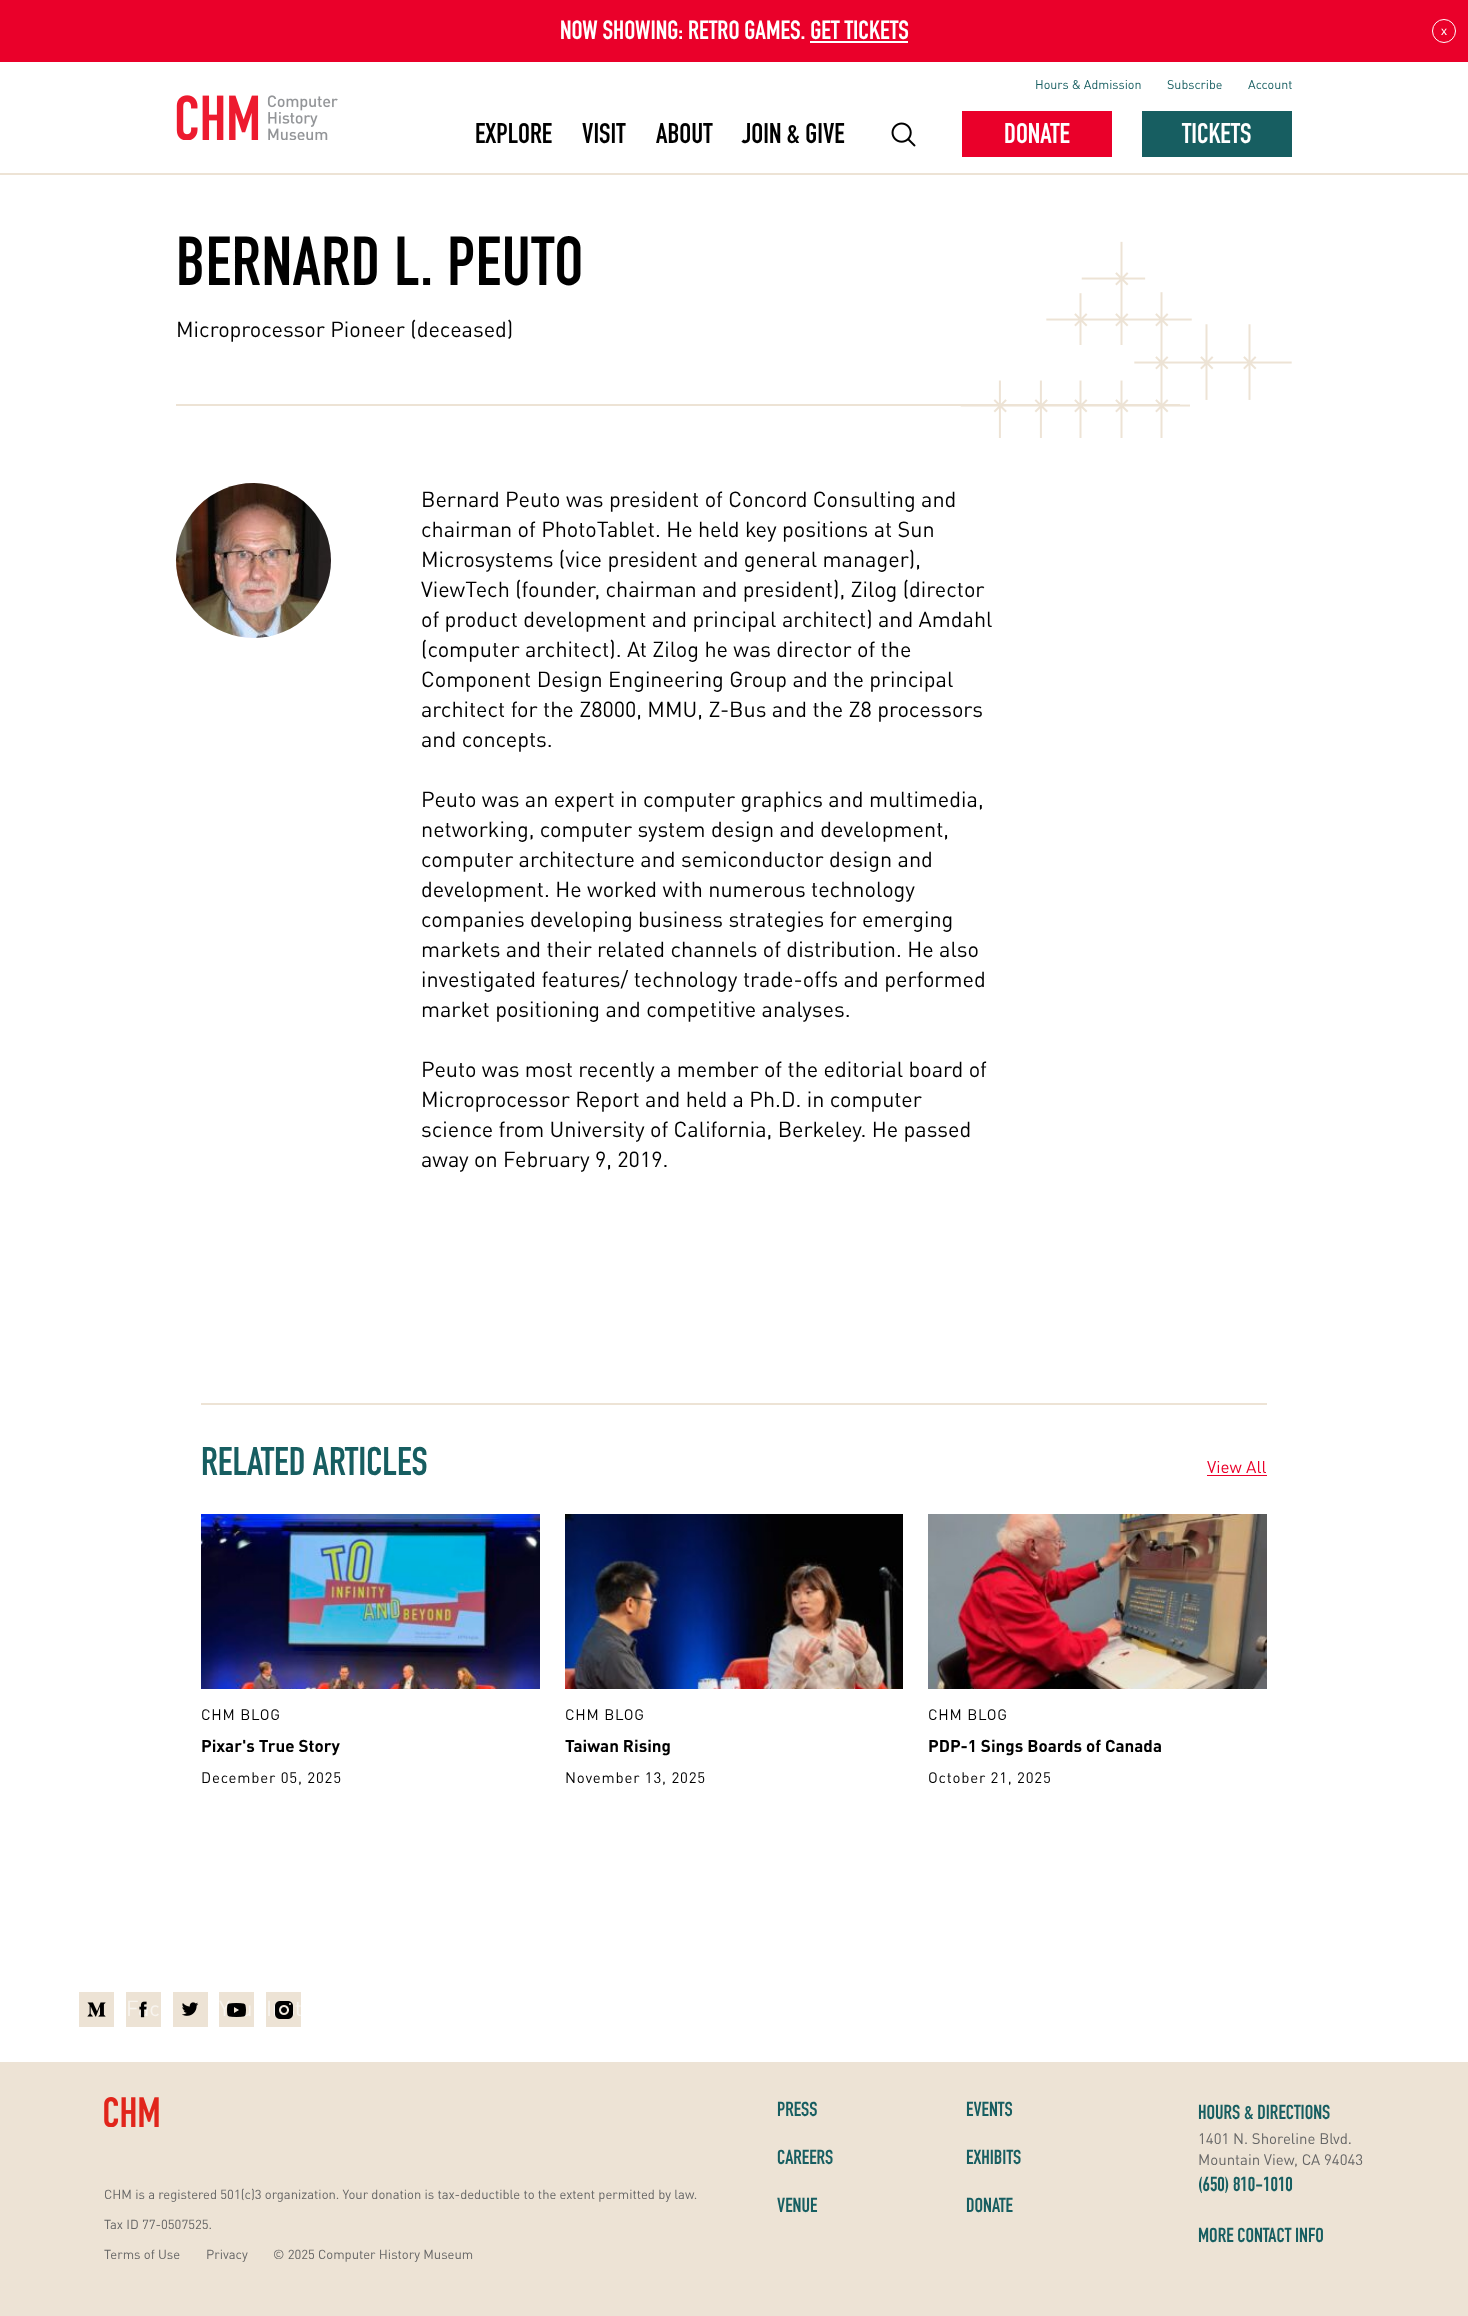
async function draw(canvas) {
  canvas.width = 1468;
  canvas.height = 2316;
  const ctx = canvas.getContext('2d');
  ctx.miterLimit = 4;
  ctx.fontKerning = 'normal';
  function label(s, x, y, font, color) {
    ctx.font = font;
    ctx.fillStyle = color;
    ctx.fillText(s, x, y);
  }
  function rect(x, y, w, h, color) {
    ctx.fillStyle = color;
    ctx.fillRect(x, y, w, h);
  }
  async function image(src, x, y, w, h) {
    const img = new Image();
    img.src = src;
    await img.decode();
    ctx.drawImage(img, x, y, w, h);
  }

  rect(0, 0, 1468, 2316, '#fff');
  rect(0, 0, 1468, 62, '#ea002a');
  label('NOW SHOWING: RETRO GAMES. GET TICKETS', 560, 39, '26px "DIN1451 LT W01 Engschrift"', '#fff');
  rect(810, 41, 98, 2, '#fff');
  ctx.beginPath();
  ctx.arc(1444, 31, 11.5, 0, 2 * Math.PI);
  ctx.strokeStyle = '#fff';
  ctx.stroke();
  label('x', 1441, 35, '12px Liberation Sans', '#fff');
  rect(0, 173, 1468, 2, '#ede3d5');
  await image('assets/img1.png', 176, 95, 162, 45);
  label('Hours & Admission', 1035, 89, '12.5px DIN', '#175e61');
  label('Subscribe', 1167, 89, '12.5px DIN', '#175e61');
  label('Account', 1248, 89, '12.5px DIN', '#175e61');
  label('EXPLORE', 475, 143, '28px "DIN1451 LT W01 Engschrift"', '#000');
  label('VISIT', 582, 143, '28px "DIN1451 LT W01 Engschrift"', '#000');
  label('ABOUT', 656, 143, '28px "DIN1451 LT W01 Engschrift"', '#000');
  label('JOIN & GIVE', 742, 143, '28px "DIN1451 LT W01 Engschrift"', '#000');
  await image('assets/img2.png', 891, 122, 25, 25);
  rect(962, 111, 150, 46, '#ea002a');
  label('DONATE', 1004, 143, '28px "DIN1451 LT W01 Engschrift"', '#fff');
  rect(1142, 111, 150, 46, '#175e61');
  label('TICKETS', 1182, 143, '28px "DIN1451 LT W01 Engschrift"', '#fff');
  ctx.letterSpacing = '0.75px';
  label('BERNARD L. PEUTO', 176, 285, '68.25px "DIN1451 LT W01 Engschrift"', '#000');
  ctx.letterSpacing = '0px';
  label('Microprocessor Pioneer (deceased)', 176, 337, '21.6px DIN', '#000');
  await image('assets/img3.png', 960, 241, 332, 197);
  rect(176, 404, 1004, 2, '#ede3d5');
  await image('assets/img4.png', 175, 483, 156, 155);
  label('Bernard Peuto was president of Concord Consulting and', 421, 507, '21.6px DIN', '#000');
  label('chairman of PhotoTablet. He held key positions at Sun', 421, 537, '21.6px DIN', '#000');
  label('Microsystems (vice president and general manager),', 421, 567, '21.6px DIN', '#000');
  label('ViewTech (founder, chairman and president), Zilog (director', 421, 597, '21.6px DIN', '#000');
  label('of product development and principal architect) and Amdahl', 421, 627, '21.6px DIN', '#000');
  label('(computer architect). At Zilog he was director of the', 421, 657, '21.6px DIN', '#000');
  label('Component Design Engineering Group and the principal', 421, 687, '21.6px DIN', '#000');
  label('architect for the Z8000, MMU, Z-Bus and the Z8 processors', 421, 717, '21.6px DIN', '#000');
  label('and concepts.', 421, 747, '21.6px DIN', '#000');
  label('Peuto was an expert in computer graphics and multimedia,', 421, 807, '21.6px DIN', '#000');
  label('networking, computer system design and development,', 421, 837, '21.6px DIN', '#000');
  label('computer architecture and semiconductor design and', 421, 867, '21.6px DIN', '#000');
  label('development. He worked with numerous technology', 421, 897, '21.6px DIN', '#000');
  label('companies developing business strategies for emerging', 421, 927, '21.6px DIN', '#000');
  label('markets and their related channels of distribution. He also', 421, 957, '21.6px DIN', '#000');
  label('investigated features/ technology trade-offs and performed', 421, 987, '21.6px DIN', '#000');
  label('market positioning and competitive analyses.', 421, 1017, '21.6px DIN', '#000');
  label('Peuto was most recently a member of the editorial board of', 421, 1077, '21.6px DIN', '#000');
  label('Microprocessor Report and held a Ph.D. in computer', 421, 1107, '21.6px DIN', '#000');
  label('science from University of California, Berkeley. He passed', 421, 1137, '21.6px DIN', '#000');
  label('away on February 9, 2019.', 421, 1167, '21.6px DIN', '#000');
  rect(201, 1403, 1066, 2, '#ede3d5');
  label('RELATED ARTICLES', 201, 1475, '39.5px "DIN1451 LT W01 Engschrift"', '#175e61');
  rect(1207, 1475, 60, 1, '#ea002a');
  label('View All', 1207, 1473, '17px DIN', '#ea002a');
  await image('assets/img5.png', 201, 1514, 339, 175);
  ctx.letterSpacing = '0.8px';
  label('CHM BLOG', 201, 1720, '15px DIN', '#000');
  ctx.letterSpacing = '0px';
  label('Pixar\'s True Story', 201, 1752, 'bold 17px DIN', '#000');
  ctx.letterSpacing = '0.8px';
  label('December 05, 2025', 201, 1783, '15px DIN', '#000');
  await image('assets/img6.png', 565, 1514, 338, 175);
  label('CHM BLOG', 565, 1720, '15px DIN', '#000');
  ctx.letterSpacing = '0px';
  label('Taiwan Rising', 565, 1752, 'bold 17px DIN', '#000');
  ctx.letterSpacing = '0.8px';
  label('November 13, 2025', 565, 1783, '15px DIN', '#000');
  await image('assets/img7.png', 928, 1514, 339, 175);
  label('CHM BLOG', 928, 1720, '15px DIN', '#000');
  ctx.letterSpacing = '0px';
  label('PDP-1 Sings Boards of Canada', 928, 1752, 'bold 17px DIN', '#000');
  ctx.letterSpacing = '0.8px';
  label('October 21, 2025', 928, 1783, '15px DIN', '#000');
  rect(0, 2062, 1468, 254, '#ede3d5');
  rect(79, 1992, 35, 35, '#ede3d5');
  await image('assets/img8.png', 87, 2002, 19, 15);
  rect(126, 1992, 35, 35, '#ede3d5');
  ctx.letterSpacing = '0px';
  label('Fac', 126, 2016, '21.6px DIN', '#f8f4ef');
  await image('assets/img9.png', 139, 2001, 8, 17);
  rect(173, 1992, 35, 35, '#ede3d5');
  await image('assets/img10.png', 182, 2002, 17, 14);
  rect(219, 1992, 35, 35, '#ede3d5');
  label('You', 219, 2016, '21.6px DIN', '#f8f4ef');
  await image('assets/img11.png', 227, 2003, 19, 14);
  rect(266, 1992, 35, 35, '#ede3d5');
  label('Inst', 266, 2016, '21.6px DIN', '#f8f4ef');
  await image('assets/img12.png', 275, 2001, 18, 18);
  await image('assets/img13.png', 104, 2097, 55, 30);
  label('CHM is a registered 501(c)3 organization. Your donation is tax-deductible to the extent permitted by law.', 104, 2199, '13px DIN', '#666');
  label('Tax ID 77-0507525.', 104, 2229, '13px DIN', '#666');
  label('Terms of Use', 104, 2259, '13px DIN', '#666');
  label('Privacy', 206, 2259, '13px DIN', '#666');
  label('© 2025 Computer History Museum', 273, 2259, '13px DIN', '#666');
  label('PRESS', 777, 2116, '20px "DIN1451 LT W01 Engschrift"', '#175e61');
  label('CAREERS', 777, 2164, '20px "DIN1451 LT W01 Engschrift"', '#175e61');
  label('VENUE', 777, 2212, '20px "DIN1451 LT W01 Engschrift"', '#175e61');
  label('EVENTS', 966, 2116, '20px "DIN1451 LT W01 Engschrift"', '#175e61');
  label('EXHIBITS', 966, 2164, '20px "DIN1451 LT W01 Engschrift"', '#175e61');
  label('DONATE', 966, 2212, '20px "DIN1451 LT W01 Engschrift"', '#175e61');
  label('HOURS & DIRECTIONS', 1198, 2119, '20px "DIN1451 LT W01 Engschrift"', '#175e61');
  label('1401 N. Shoreline Blvd.', 1198, 2144, '15px DIN', '#666');
  label('Mountain View, CA 94043', 1198, 2165, '15px DIN', '#666');
  label('(650) 810-1010', 1198, 2191, '20px "DIN1451 LT W01 Engschrift"', '#175e61');
  label('MORE CONTACT INFO', 1198, 2242, '20px "DIN1451 LT W01 Engschrift"', '#175e61');
}

draw(document.querySelector('canvas'));
